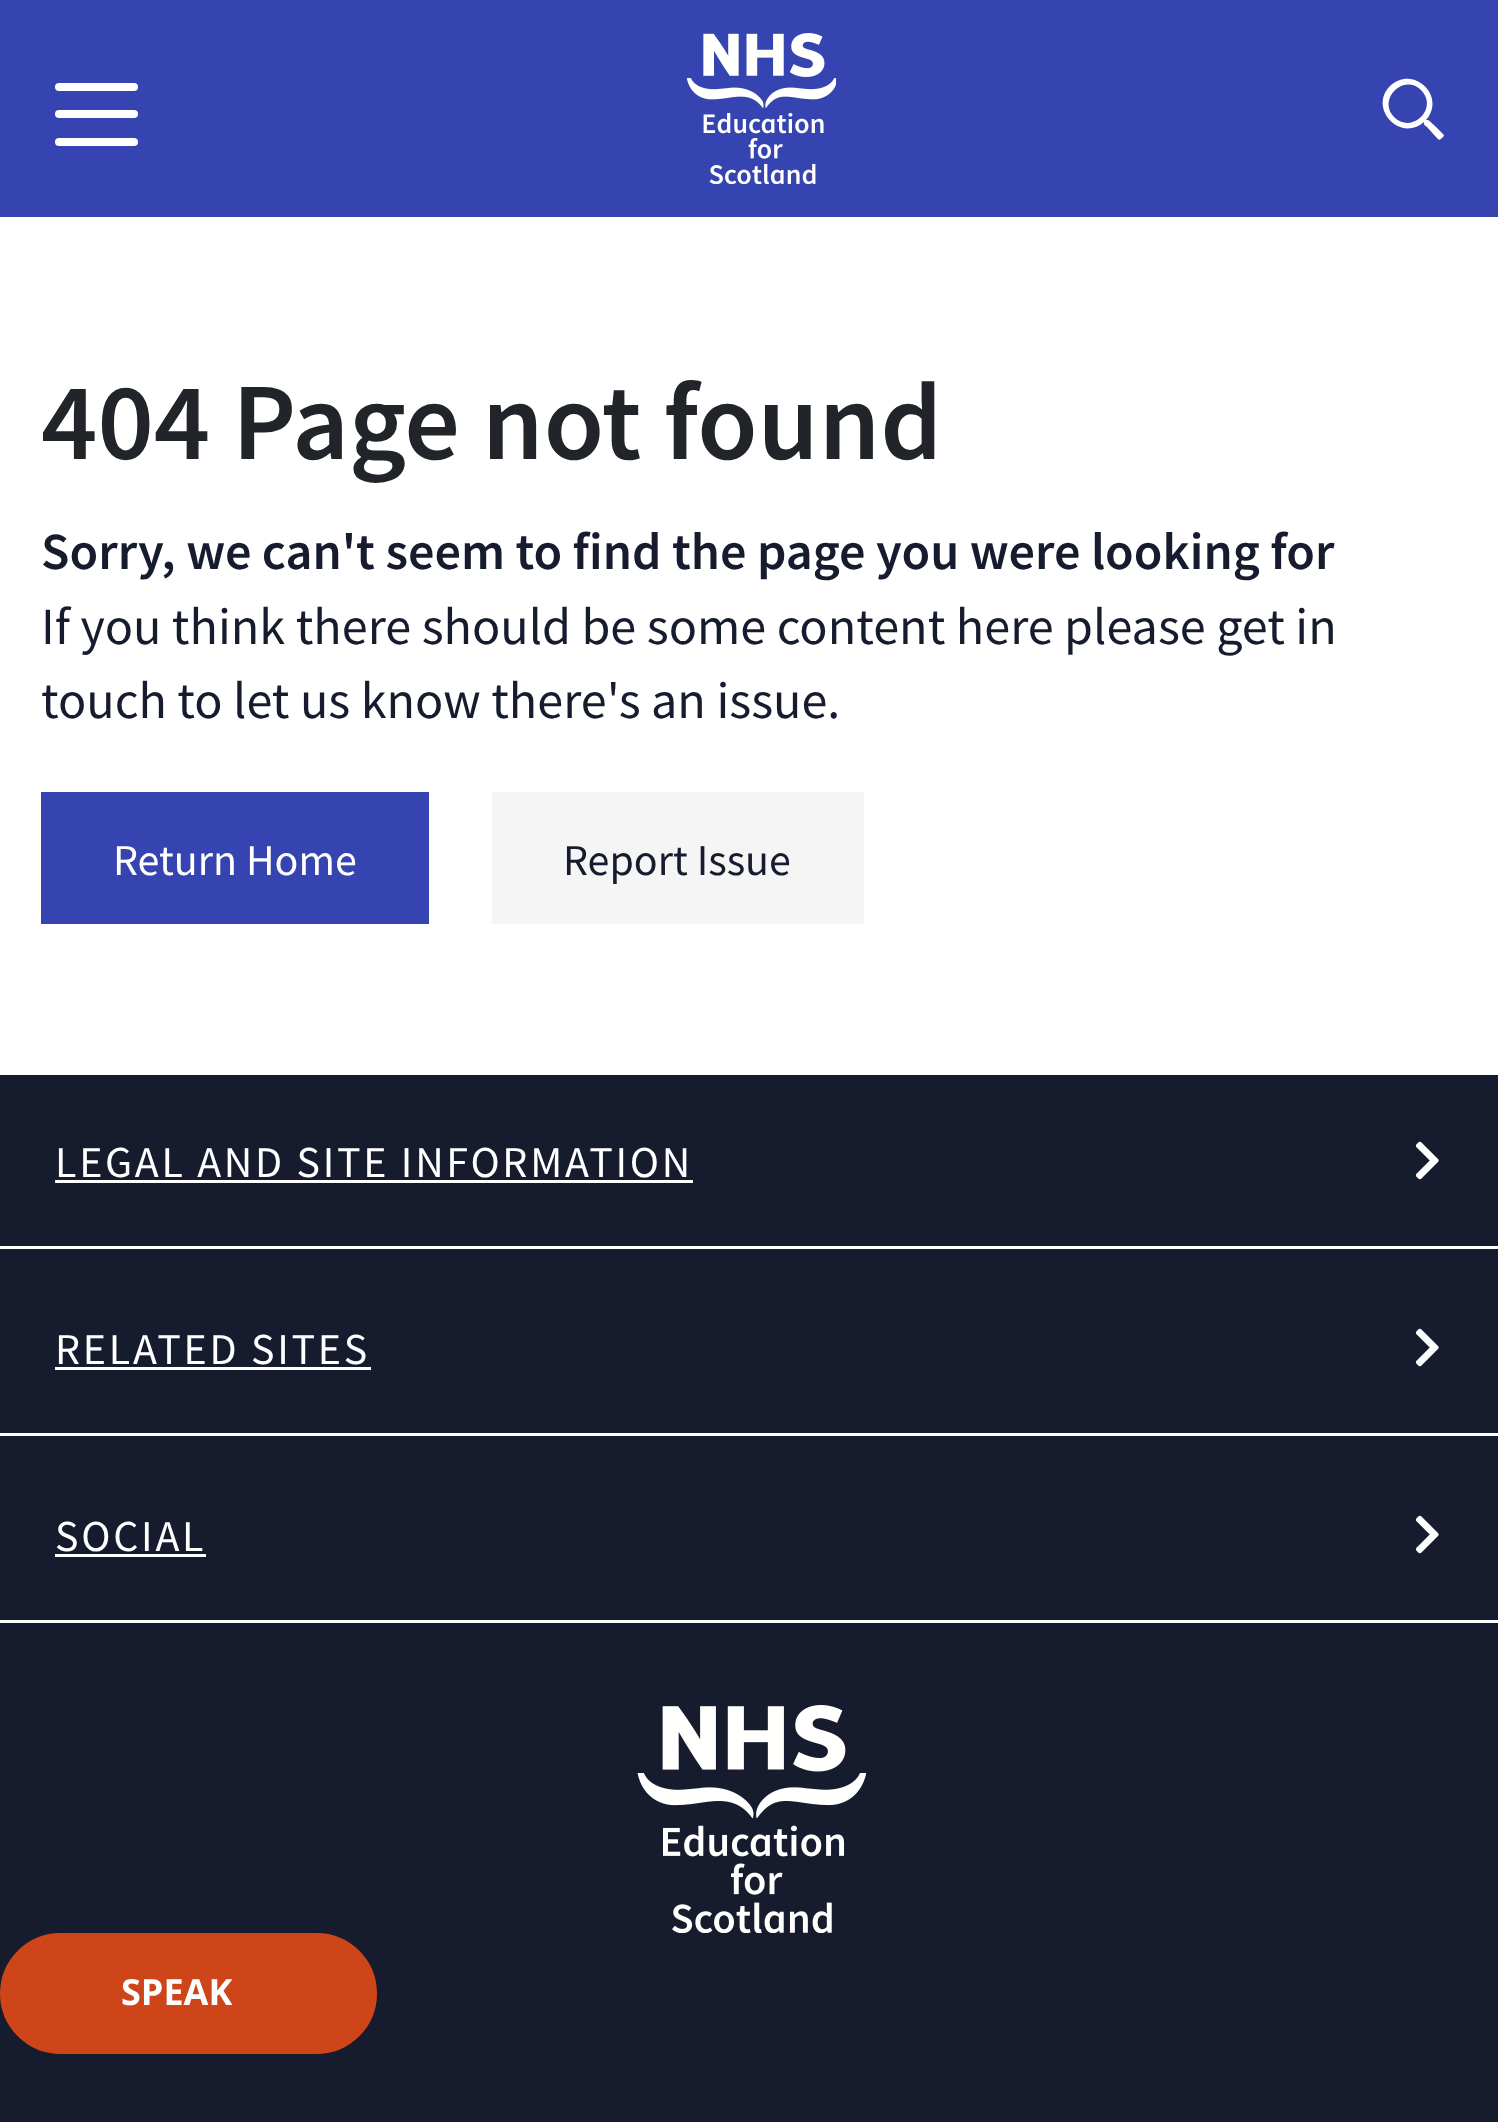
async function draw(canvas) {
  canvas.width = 1498;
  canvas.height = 2122;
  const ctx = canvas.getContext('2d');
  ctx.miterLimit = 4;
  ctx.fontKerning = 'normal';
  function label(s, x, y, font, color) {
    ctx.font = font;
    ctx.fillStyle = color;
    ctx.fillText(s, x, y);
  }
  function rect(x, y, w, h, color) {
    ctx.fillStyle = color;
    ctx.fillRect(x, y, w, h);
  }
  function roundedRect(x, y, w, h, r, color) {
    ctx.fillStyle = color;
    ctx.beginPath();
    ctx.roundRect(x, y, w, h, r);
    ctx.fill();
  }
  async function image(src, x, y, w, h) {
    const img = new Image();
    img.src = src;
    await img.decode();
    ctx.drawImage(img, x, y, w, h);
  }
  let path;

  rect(0, 0, 1498, 2122, '#fff');
  rect(0, 0, 1498, 217, '#3544b1');
  roundedRect(55, 83, 83, 8, 4, '#fff');
  roundedRect(55, 110, 83, 8, 4, '#fff');
  roundedRect(55, 138, 83, 8, 4, '#fff');
  await image('assets/img1.png', 686, 33, 150, 151);
  path = new Path2D('M1443 134C1445 136 1443 137 1442 138C1439 141 1439 140 1436 137L1427 127C1424 125 1424 125 1424 122C1400 143 1368 108 1390 86C1413 64 1447 96 1426 120C1430 120 1430 122 1434 125ZM1394 117C1412 135 1439 108 1421 90C1404 73 1377 99 1394 117Z');
  ctx.fill(path);
  label('404 Page not found', 41, 459, '600 110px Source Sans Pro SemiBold', '#212529');
  label('Sorry, we can\'t seem to find the page you were looking for', 41, 569, '600 52.25px Source Sans Pro SemiBold', '#161c2d');
  label('If you think there should be some content here please get in', 41, 644, '52.25px Source Sans Pro', '#161c2d');
  label('touch to let us know there\'s an issue.', 41, 718, '52.25px Source Sans Pro', '#161c2d');
  rect(41, 792, 388, 132, '#3544b1');
  label('Return Home', 113, 875, '44px Source Sans Pro', '#fff');
  rect(492, 792, 372, 132, '#f5f5f5');
  label('Report Issue', 563, 875, '44px Source Sans Pro', '#161c2d');
  rect(0, 1249, 1498, 873, '#161c2d');
  rect(0, 1075, 1498, 171, '#161c2d');
  ctx.letterSpacing = '2.75px';
  label('LEGAL AND SITE INFORMATION', 55, 1177, '44px Source Sans Pro', '#fff');
  rect(55, 1180, 638, 3, '#fff');
  await image('assets/img2.png', 1415, 1141, 24, 39);
  rect(0, 1433, 1498, 3, '#fff');
  label('RELATED SITES', 55, 1364, '44px Source Sans Pro', '#fff');
  rect(55, 1367, 316, 3, '#fff');
  await image('assets/img2.png', 1415, 1328, 24, 39);
  rect(0, 1620, 1498, 3, '#fff');
  label('SOCIAL', 55, 1551, '44px Source Sans Pro', '#fff');
  rect(55, 1554, 151, 3, '#fff');
  await image('assets/img2.png', 1415, 1515, 24, 39);
  await image('assets/img3.png', 637, 1705, 229, 228);
  ctx.fillStyle = '#cd4518';
  ctx.beginPath();
  ctx.roundRect(3, 1936, 371, 115, 57.5);
  ctx.fill();
  ctx.strokeStyle = '#cd4518';
  ctx.lineWidth = 6;
  ctx.stroke();
  ctx.letterSpacing = '0px';
  label('SPEAK', 121, 2005, 'bold 36px Open Sans', '#fff');
}

draw(document.querySelector('canvas'));
